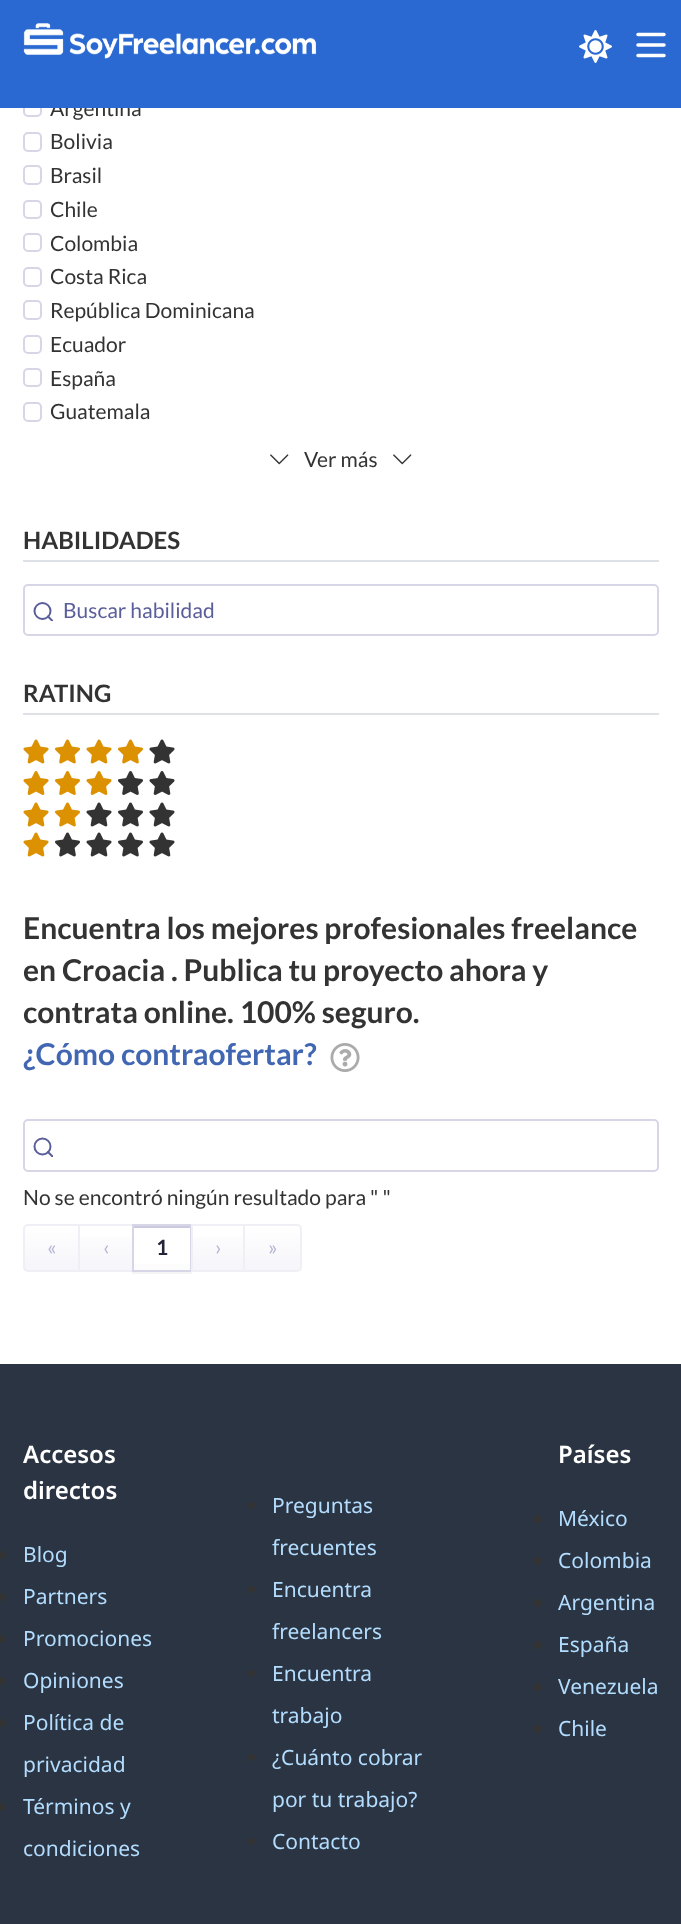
async function draw(canvas) {
  canvas.width = 681;
  canvas.height = 1924;
  const ctx = canvas.getContext('2d');
  ctx.miterLimit = 4;
  ctx.fontKerning = 'normal';
  function label(s, x, y, font, color) {
    ctx.font = font;
    ctx.fillStyle = color;
    ctx.fillText(s, x, y);
  }
  function rect(x, y, w, h, color) {
    ctx.fillStyle = color;
    ctx.fillRect(x, y, w, h);
  }
  function roundedRect(x, y, w, h, r, color) {
    ctx.fillStyle = color;
    ctx.beginPath();
    ctx.roundRect(x, y, w, h, r);
    ctx.fill();
  }
  async function image(src, x, y, w, h) {
    const img = new Image();
    img.src = src;
    await img.decode();
    ctx.drawImage(img, x, y, w, h);
  }
  let gradient, path;

  rect(0, 0, 681, 1924, '#fff');
  ctx.beginPath();
  ctx.roundRect(24, 99, 17, 17, 4);
  ctx.strokeStyle = '#d6d6e7';
  ctx.lineWidth = 2;
  ctx.stroke();
  label('Argentina', 50, 116, '21px Lato', '#333');
  rect(0, 0, 681, 108, '#2969d1');
  await image('assets/img1.png', 23, 23, 294, 36);
  await image('assets/img2.png', 579, 30, 33, 33);
  path = new Path2D('M638 34.5H664M638 45H664M638 55.5H664');
  ctx.strokeStyle = '#fff';
  ctx.lineWidth = 3.5;
  ctx.lineCap = 'round';
  ctx.lineJoin = 'round';
  ctx.stroke(path);
  ctx.beginPath();
  ctx.roundRect(24, 133, 17, 18, 4);
  ctx.strokeStyle = '#d6d6e7';
  ctx.lineWidth = 2;
  ctx.lineJoin = 'miter';
  ctx.stroke();
  label('Bolivia', 50, 149, '21px Lato', '#333');
  ctx.beginPath();
  ctx.roundRect(24, 166, 17, 18, 4);
  ctx.stroke();
  label('Brasil', 50, 183, '21px Lato', '#333');
  ctx.beginPath();
  ctx.roundRect(24, 201, 17, 17, 4);
  ctx.stroke();
  label('Chile', 50, 217, '21px Lato', '#333');
  ctx.beginPath();
  ctx.roundRect(24, 234, 17, 17, 4);
  ctx.stroke();
  label('Colombia', 50, 251, '21px Lato', '#333');
  ctx.beginPath();
  ctx.roundRect(24, 268, 17, 18, 4);
  ctx.stroke();
  label('Costa Rica', 50, 284, '21px Lato', '#333');
  ctx.beginPath();
  ctx.roundRect(24, 301, 17, 18, 4);
  ctx.stroke();
  label('República Dominicana', 50, 318, '21px Lato', '#333');
  ctx.beginPath();
  ctx.roundRect(24, 336, 17, 17, 4);
  ctx.stroke();
  label('Ecuador', 50, 352, '21px Lato', '#333');
  ctx.beginPath();
  ctx.roundRect(24, 369, 17, 17, 4);
  ctx.stroke();
  label('España', 50, 386, '21px Lato', '#333');
  ctx.beginPath();
  ctx.roundRect(24, 403, 17, 18, 4);
  ctx.stroke();
  label('Guatemala', 50, 419, '21px Lato', '#333');
  await image('assets/img3.png', 270, 454, 19, 11);
  label('Ver más', 304, 467, '21px Lato', '#333');
  await image('assets/img3.png', 393, 454, 19, 11);
  rect(23, 560, 636, 2, '#dee2e6');
  label('HABILIDADES', 23, 549, 'bold 24px Lato', '#333');
  ctx.beginPath();
  ctx.roundRect(24, 585, 634, 50, 4);
  ctx.stroke();
  ctx.beginPath();
  ctx.arc(42.5, 611, 8, 0, 2 * Math.PI);
  ctx.strokeStyle = '#5a5e9a';
  ctx.stroke();
  ctx.save();
  ctx.beginPath();
  ctx.rect(32, 600, 21, 21);
  ctx.clip();
  path = new Path2D('M52.5 621L48 616.5');
  ctx.lineJoin = 'round';
  ctx.stroke(path);
  ctx.restore();
  label('Buscar habilidad', 63, 618, '21px Lato', '#5a5e9a');
  rect(23, 713, 636, 2, '#dee2e6');
  label('RATING', 23, 702, 'bold 24px Lato', '#333');
  await image('assets/img4.png', 23, 739, 26, 25);
  await image('assets/img5.png', 55, 739, 25, 25);
  await image('assets/img4.png', 86, 739, 26, 25);
  await image('assets/img5.png', 118, 739, 25, 25);
  await image('assets/img6.png', 149, 739, 26, 25);
  await image('assets/img7.png', 23, 771, 26, 24);
  await image('assets/img8.png', 55, 771, 25, 24);
  await image('assets/img7.png', 86, 771, 26, 24);
  await image('assets/img9.png', 118, 771, 25, 24);
  await image('assets/img10.png', 149, 771, 26, 24);
  await image('assets/img4.png', 23, 802, 26, 25);
  await image('assets/img5.png', 55, 802, 25, 25);
  await image('assets/img6.png', 86, 802, 26, 25);
  await image('assets/img11.png', 118, 802, 25, 25);
  await image('assets/img6.png', 149, 802, 26, 25);
  await image('assets/img4.png', 23, 832, 26, 25);
  await image('assets/img11.png', 55, 832, 25, 25);
  await image('assets/img6.png', 86, 832, 26, 25);
  await image('assets/img11.png', 118, 832, 25, 25);
  await image('assets/img6.png', 149, 832, 26, 25);
  label('Encuentra los mejores profesionales freelance', 23, 939, 'bold 30px Lato', '#333');
  label('en Croacia . Publica tu proyecto ahora y', 23, 981, 'bold 30px Lato', '#333');
  label('contrata online. 100% seguro.', 23, 1023, 'bold 30px Lato', '#333');
  label('¿Cómo contraofertar?', 23, 1065, 'bold 30px Lato', '#4267b2');
  await image('assets/img12.png', 330, 1043, 30, 29);
  ctx.beginPath();
  ctx.roundRect(24, 1120, 634, 51, 4);
  ctx.strokeStyle = '#d6d6e7';
  ctx.stroke();
  ctx.beginPath();
  ctx.arc(42.5, 1146.5, 8, 0, 2 * Math.PI);
  ctx.strokeStyle = '#5a5e9a';
  ctx.stroke();
  ctx.save();
  ctx.beginPath();
  ctx.rect(32, 1136, 21, 21);
  ctx.clip();
  path = new Path2D('M52.5 1156.5L48 1152');
  ctx.lineJoin = 'round';
  ctx.stroke(path);
  ctx.restore();
  label('No se encontró ningún resultado para " "', 23, 1205, '21px Lato', '#333');
  ctx.save();
  ctx.beginPath();
  ctx.roundRect(23, 1224, 57, 48, [5, 0, 0, 5]);
  ctx.clip();
  gradient = ctx.createLinearGradient(51, 1226, 51, 1271);
  gradient.addColorStop(0, '#fff');
  gradient.addColorStop(1, '#f5f5fa');
  ctx.fillStyle = gradient;
  ctx.fillRect(23, 1226, 55, 45);
  ctx.restore();
  ctx.beginPath();
  ctx.roundRect(24, 1225, 55, 46, [4, 0, 0, 4]);
  ctx.strokeStyle = '#efeff5';
  ctx.stroke();
  label('«', 47, 1255, '21px Lato', '#b6b7d5');
  gradient = ctx.createLinearGradient(106, 1226, 106, 1271);
  gradient.addColorStop(0, '#fff');
  gradient.addColorStop(1, '#f5f5fa');
  ctx.fillStyle = gradient;
  ctx.fillRect(80, 1237, 52, 33);
  ctx.strokeRect(79, 1225, 54, 46);
  label('‹', 103, 1255, '21px Lato', '#b6b7d5');
  rect(132, 1272, 60, 2, '#f4f4f5');
  gradient = ctx.createLinearGradient(162, 1226, 162, 1271);
  gradient.addColorStop(0, '#fff');
  gradient.addColorStop(1, '#fcfcfd');
  ctx.fillStyle = gradient;
  ctx.fillRect(134, 1264, 56, 6);
  rect(134, 1226, 57, 2, '#c9cadf');
  ctx.strokeStyle = '#d6d6e7';
  ctx.strokeRect(133, 1225, 58, 46);
  label('1', 156, 1255, 'bold 21px Lato', '#23263b');
  gradient = ctx.createLinearGradient(218, 1226, 218, 1271);
  gradient.addColorStop(0, '#fff');
  gradient.addColorStop(1, '#f5f5fa');
  ctx.fillStyle = gradient;
  ctx.fillRect(193, 1237, 50, 33);
  ctx.strokeStyle = '#efeff5';
  ctx.strokeRect(192, 1225, 52, 46);
  label('›', 215, 1255, '21px Lato', '#b6b7d5');
  ctx.save();
  ctx.beginPath();
  ctx.roundRect(243, 1224, 59, 48, [0, 5, 5, 0]);
  ctx.clip();
  gradient = ctx.createLinearGradient(272, 1226, 272, 1271);
  gradient.addColorStop(0, '#fff');
  gradient.addColorStop(1, '#f5f5fa');
  ctx.fillStyle = gradient;
  ctx.fillRect(245, 1226, 57, 45);
  ctx.restore();
  ctx.beginPath();
  ctx.roundRect(244, 1225, 57, 46, [0, 4, 4, 0]);
  ctx.stroke();
  label('»', 268, 1255, '21px Lato', '#b6b7d5');
  rect(0, 1364, 681, 560, '#2b3442');
  label('Accesos', 23, 1463, '600 24px Noto Sans', '#fff');
  label('directos', 23, 1499, '600 24px Noto Sans', '#fff');
  roundedRect(-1, 1551, 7, 8, 3.5, '#333');
  label('Blog', 23, 1562, '21px Noto Sans', '#b3ddff');
  roundedRect(-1, 1593, 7, 8, 3.5, '#333');
  label('Partners', 23, 1604, '21px Noto Sans', '#b3ddff');
  roundedRect(-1, 1635, 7, 8, 3.5, '#333');
  label('Promociones', 23, 1646, '21px Noto Sans', '#b3ddff');
  roundedRect(-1, 1677, 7, 8, 3.5, '#333');
  label('Opiniones', 23, 1688, '21px Noto Sans', '#b3ddff');
  roundedRect(-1, 1719, 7, 8, 3.5, '#333');
  label('Política de', 23, 1730, '21px Noto Sans', '#b3ddff');
  label('privacidad', 23, 1772, '21px Noto Sans', '#b3ddff');
  roundedRect(-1, 1803, 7, 8, 3.5, '#333');
  label('Términos y', 23, 1814, '21px Noto Sans', '#b3ddff');
  label('condiciones', 23, 1856, '21px Noto Sans', '#b3ddff');
  ctx.fillStyle = '#333';
  ctx.beginPath();
  ctx.arc(251.5, 1505.5, 3.5, 0, 2 * Math.PI);
  ctx.fill();
  label('Preguntas', 272, 1513, '21px Noto Sans', '#b3ddff');
  label('frecuentes', 272, 1555, '21px Noto Sans', '#b3ddff');
  ctx.fillStyle = '#333';
  ctx.beginPath();
  ctx.arc(251.5, 1589.5, 3.5, 0, 2 * Math.PI);
  ctx.fill();
  label('Encuentra', 272, 1597, '21px Noto Sans', '#b3ddff');
  label('freelancers', 272, 1639, '21px Noto Sans', '#b3ddff');
  ctx.fillStyle = '#333';
  ctx.beginPath();
  ctx.arc(251.5, 1673.5, 3.5, 0, 2 * Math.PI);
  ctx.fill();
  label('Encuentra', 272, 1681, '21px Noto Sans', '#b3ddff');
  label('trabajo', 272, 1723, '21px Noto Sans', '#b3ddff');
  ctx.fillStyle = '#333';
  ctx.beginPath();
  ctx.arc(251.5, 1757.5, 3.5, 0, 2 * Math.PI);
  ctx.fill();
  label('¿Cuánto cobrar', 272, 1765, '21px Noto Sans', '#b3ddff');
  label('por tu trabajo?', 272, 1807, '21px Noto Sans', '#b3ddff');
  ctx.fillStyle = '#333';
  ctx.beginPath();
  ctx.arc(251.5, 1841.5, 3.5, 0, 2 * Math.PI);
  ctx.fill();
  label('Contacto', 272, 1849, '21px Noto Sans', '#b3ddff');
  label('Países', 558, 1463, '600 24px Noto Sans', '#fff');
  ctx.fillStyle = '#333';
  ctx.beginPath();
  ctx.arc(538, 1519, 4, 0, 2 * Math.PI);
  ctx.fill();
  label('México', 558, 1526, '21px Noto Sans', '#b3ddff');
  ctx.fillStyle = '#333';
  ctx.beginPath();
  ctx.arc(538, 1561, 4, 0, 2 * Math.PI);
  ctx.fill();
  label('Colombia', 558, 1568, '21px Noto Sans', '#b3ddff');
  ctx.fillStyle = '#333';
  ctx.beginPath();
  ctx.arc(538, 1603, 4, 0, 2 * Math.PI);
  ctx.fill();
  label('Argentina', 558, 1610, '21px Noto Sans', '#b3ddff');
  ctx.fillStyle = '#333';
  ctx.beginPath();
  ctx.arc(538, 1645, 4, 0, 2 * Math.PI);
  ctx.fill();
  label('España', 558, 1652, '21px Noto Sans', '#b3ddff');
  ctx.fillStyle = '#333';
  ctx.beginPath();
  ctx.arc(538, 1687, 4, 0, 2 * Math.PI);
  ctx.fill();
  label('Venezuela', 558, 1694, '21px Noto Sans', '#b3ddff');
  ctx.fillStyle = '#333';
  ctx.beginPath();
  ctx.arc(538, 1729, 4, 0, 2 * Math.PI);
  ctx.fill();
  label('Chile', 558, 1736, '21px Noto Sans', '#b3ddff');
}

draw(document.querySelector('canvas'));
